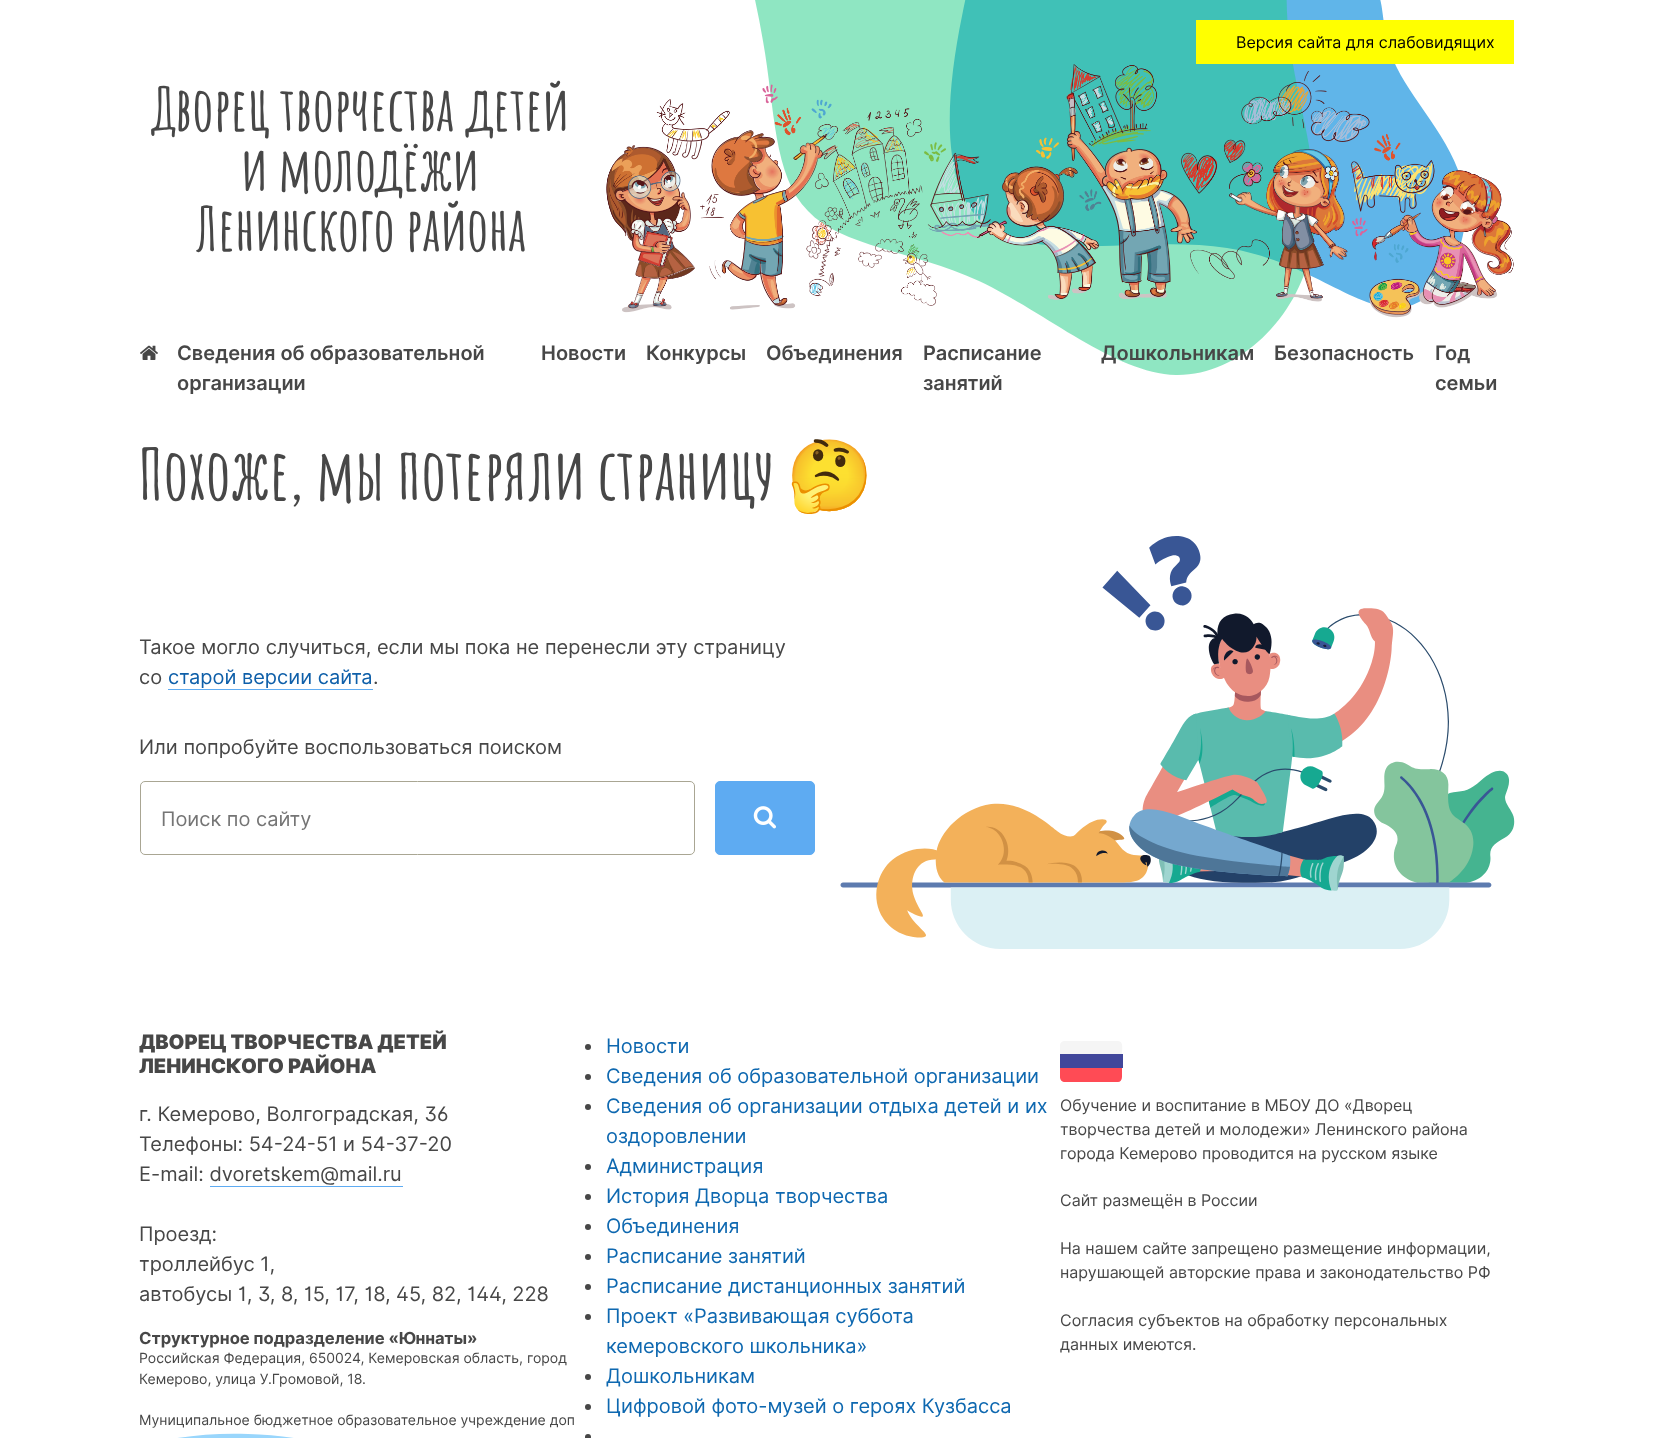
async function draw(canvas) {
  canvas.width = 1653;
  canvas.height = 1438;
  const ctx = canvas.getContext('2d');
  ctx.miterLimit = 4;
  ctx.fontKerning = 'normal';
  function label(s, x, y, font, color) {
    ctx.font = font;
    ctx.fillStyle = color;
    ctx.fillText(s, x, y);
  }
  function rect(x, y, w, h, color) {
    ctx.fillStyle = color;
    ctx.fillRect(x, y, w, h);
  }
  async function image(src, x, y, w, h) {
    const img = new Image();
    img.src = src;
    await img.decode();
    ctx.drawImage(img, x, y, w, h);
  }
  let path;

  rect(0, 0, 1653, 1438, '#fff');
  ctx.fillStyle = '#60b5e9';
  path = new Path2D('M1375-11C1386 0 1379 31 1397 68C1415 105 1459 147 1465 197C1471 247 1440 305 1399 308C1357 311 1306 260 1227 248C1148 235 1042 262 991 229C940 196 944 104 962 16C979-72 1009-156 1068-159C1127-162 1215-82 1275-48C1334-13 1364-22 1375-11Z');
  ctx.fill(path);
  ctx.fillStyle = '#20ce8680';
  path = new Path2D('M1225-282C1267-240 1286-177 1290-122C1293-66 1281-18 1290 45C1298 108 1326 184 1311 251C1297 318 1239 376 1176 375C1114 373 1047 313 979 281C911 250 842 247 808 211C773 176 775 108 763 41C752-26 728-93 741-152C754-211 803-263 861-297C919-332 986-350 1052-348C1118-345 1183-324 1225-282Z');
  ctx.fill(path);
  rect(1196, 20, 318, 44, '#ff0');
  label('Версия сайта для слабовидящих', 1236, 48, '16px Inter', '#000');
  await image('assets/img1.png', 606, 64, 908, 254);
  label('Дворец творчества детей', 152, 131, 'bold 60px Amatic SC', '#474747');
  label('и молодёжи', 241, 191, 'bold 60px Amatic SC', '#474747');
  label('Ленинского района', 195, 251, 'bold 60px Amatic SC', '#474747');
  await image('assets/img2.png', 140, 345, 18, 15);
  label('Сведения об образовательной', 177, 360, '600 20px Inter', '#474747');
  label('организации', 177, 390, '600 20px Inter', '#474747');
  label('Новости', 541, 360, '600 20px Inter', '#474747');
  label('Конкурсы', 646, 360, '600 20px Inter', '#474747');
  label('Объединения', 766, 360, '600 20px Inter', '#474747');
  label('Расписание', 923, 360, '600 20px Inter', '#474747');
  label('занятий', 923, 390, '600 20px Inter', '#474747');
  label('Дошкольникам', 1101, 360, '600 20px Inter', '#474747');
  label('Безопасность', 1274, 360, '600 20px Inter', '#474747');
  label('Год', 1435, 360, '600 20px Inter', '#474747');
  label('семьи', 1435, 390, '600 20px Inter', '#474747');
  label('Похоже, мы потеряли страницу', 139, 500, 'bold 70px Amatic SC', '#474747');
  label('🤔', 786, 500, 'bold 70px Noto Color Emoji', '#474747');
  label('Такое могло случиться, если мы пока не перенесли эту страницу', 139, 654, '20px Inter', '#474747');
  label('со', 139, 684, '20px Inter', '#474747');
  label('старой версии сайта', 168, 684, '20px Inter', '#0e5fa9');
  rect(168, 689, 205, 1, '#5eabf2');
  label('.', 373, 684, '20px Inter', '#474747');
  label('Или попробуйте воспользоваться поиском', 139, 754, '20px Inter', '#474747');
  ctx.beginPath();
  ctx.roundRect(140.5, 781.5, 554, 73, 4.5);
  ctx.strokeStyle = '#a9a693';
  ctx.stroke();
  label('Поиск по сайту', 161, 826, '20px Inter', '#757575');
  ctx.fillStyle = '#5eabf2';
  ctx.beginPath();
  ctx.roundRect(715.5, 781.5, 99, 73, 4.5);
  ctx.fill();
  ctx.strokeStyle = '#5eabf2';
  ctx.stroke();
  await image('assets/img3.png', 753, 806, 23, 23);
  await image('assets/img4.png', 840, 536, 675, 413);
  label('ДВОРЕЦ ТВОРЧЕСТВА ДЕТЕЙ', 139, 1049, '900 20px Inter', '#474747');
  label('ЛЕНИНСКОГО РАЙОНА', 139, 1073, '900 20px Inter', '#474747');
  label('г. Кемерово, Волгоградская, 36', 139, 1121, '20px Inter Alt', '#474747');
  label('Телефоны: 54-24-51 и 54-37-20', 139, 1151, '20px Inter', '#474747');
  label('E-mail: dvoretskem@mail.ru', 139, 1181, '20px Inter', '#474747');
  rect(210, 1186, 193, 1, '#5eabf2');
  label('Проезд:', 139, 1241, '20px Inter', '#474747');
  label('троллейбус 1,', 139, 1271, '20px Inter', '#474747');
  label('автобусы 1, 3, 8, 15, 17, 18, 45, 82, 144, 228', 139, 1301, '20px Inter Alt', '#474747');
  label('Структурное подразделение «Юннаты»', 139, 1344, 'bold 16.6px Inter', '#474747');
  label('Российская Федерация, 650024, Кемеровская область, город', 139, 1363, '14px Inter', '#474747');
  label('Кемерово, улица У.Громовой, 18.', 139, 1384, '14px Inter', '#474747');
  label('Муниципальное бюджетное образовательное учреждение доп', 139, 1425, '14px Inter', '#474747');
  ctx.beginPath();
  ctx.arc(588, 1047, 3, 0, 2 * Math.PI);
  ctx.fill();
  label('Новости', 606, 1053, '20px Inter', '#0e68b0');
  ctx.fillStyle = '#474747';
  ctx.beginPath();
  ctx.arc(588, 1077, 3, 0, 2 * Math.PI);
  ctx.fill();
  label('Сведения об образовательной организации', 606, 1083, '20px Inter', '#0e68b0');
  ctx.fillStyle = '#474747';
  ctx.beginPath();
  ctx.arc(588, 1107, 3, 0, 2 * Math.PI);
  ctx.fill();
  label('Сведения об организации отдыха детей и их', 606, 1113, '20px Inter', '#0e68b0');
  label('оздоровлении', 606, 1143, '20px Inter', '#0e68b0');
  ctx.fillStyle = '#474747';
  ctx.beginPath();
  ctx.arc(588, 1167, 3, 0, 2 * Math.PI);
  ctx.fill();
  label('Администрация', 606, 1173, '20px Inter', '#0e68b0');
  ctx.fillStyle = '#474747';
  ctx.beginPath();
  ctx.arc(588, 1197, 3, 0, 2 * Math.PI);
  ctx.fill();
  label('История Дворца творчества', 606, 1203, '20px Inter', '#0e68b0');
  ctx.fillStyle = '#474747';
  ctx.beginPath();
  ctx.arc(588, 1227, 3, 0, 2 * Math.PI);
  ctx.fill();
  label('Объединения', 606, 1233, '20px Inter', '#0e68b0');
  ctx.fillStyle = '#474747';
  ctx.beginPath();
  ctx.arc(588, 1257, 3, 0, 2 * Math.PI);
  ctx.fill();
  label('Расписание занятий', 606, 1263, '20px Inter', '#0e68b0');
  ctx.fillStyle = '#474747';
  ctx.beginPath();
  ctx.arc(588, 1287, 3, 0, 2 * Math.PI);
  ctx.fill();
  label('Расписание дистанционных занятий', 606, 1293, '20px Inter', '#0e68b0');
  ctx.fillStyle = '#474747';
  ctx.beginPath();
  ctx.arc(588, 1317, 3, 0, 2 * Math.PI);
  ctx.fill();
  label('Проект «Развивающая суббота', 606, 1323, '20px Inter', '#0e68b0');
  label('кемеровского школьника»', 606, 1353, '20px Inter', '#0e68b0');
  ctx.fillStyle = '#474747';
  ctx.beginPath();
  ctx.arc(588, 1377, 3, 0, 2 * Math.PI);
  ctx.fill();
  label('Дошкольникам', 606, 1383, '20px Inter', '#0e68b0');
  ctx.fillStyle = '#474747';
  ctx.beginPath();
  ctx.arc(588, 1407, 3, 0, 2 * Math.PI);
  ctx.fill();
  label('Цифровой фото-музей о героях Кузбасса', 606, 1413, '20px Inter', '#0e68b0');
  ctx.fillStyle = '#474747';
  ctx.beginPath();
  ctx.arc(588, 1437, 3, 0, 2 * Math.PI);
  ctx.fill();
  ctx.fillStyle = '#f5f5f5';
  path = new Path2D('M1118 1041H1065C1062 1041 1060 1043 1060 1045V1054H1122C1122 1050 1124 1041 1118 1041Z');
  ctx.fill(path);
  rect(1060, 1054, 63, 14, '#41479b');
  ctx.fillStyle = '#ff4b55';
  path = new Path2D('M1060 1077C1060 1080 1062 1082 1065 1082H1118C1120 1082 1122 1080 1122 1077V1068H1060Z');
  ctx.fill(path);
  label('Обучение и воспитание в МБОУ ДО «Дворец', 1060, 1111, '16px Inter', '#474747');
  label('творчества детей и молодежи» Ленинского района', 1060, 1135, '16px Inter', '#474747');
  label('города Кемерово проводится на русском языке', 1060, 1159, '16px Inter', '#474747');
  label('Сайт размещён в России', 1060, 1206, '16px Inter', '#474747');
  label('На нашем сайте запрещено размещение информации,', 1060, 1254, '16px Inter', '#474747');
  label('нарушающей авторские права и законодательство РФ', 1060, 1278, '16px Inter', '#474747');
  label('Cогласия субъектов на обработку персональных', 1060, 1326, '16px Inter', '#474747');
  label('данных имеются.', 1060, 1350, '16px Inter', '#474747');
  ctx.fillStyle = '#99d6fc';
  path = new Path2D('M448 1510C496 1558 518 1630 522 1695C526 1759 512 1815 522 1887C531 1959 564 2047 547 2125C530 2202 464 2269 392 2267C319 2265 242 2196 163 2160C85 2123 5 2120-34 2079C-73 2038-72 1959-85 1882C-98 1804-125 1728-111 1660C-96 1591-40 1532 27 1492C95 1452 172 1431 248 1434C325 1436 399 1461 448 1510Z');
  ctx.fill(path);
}

draw(document.querySelector('canvas'));
